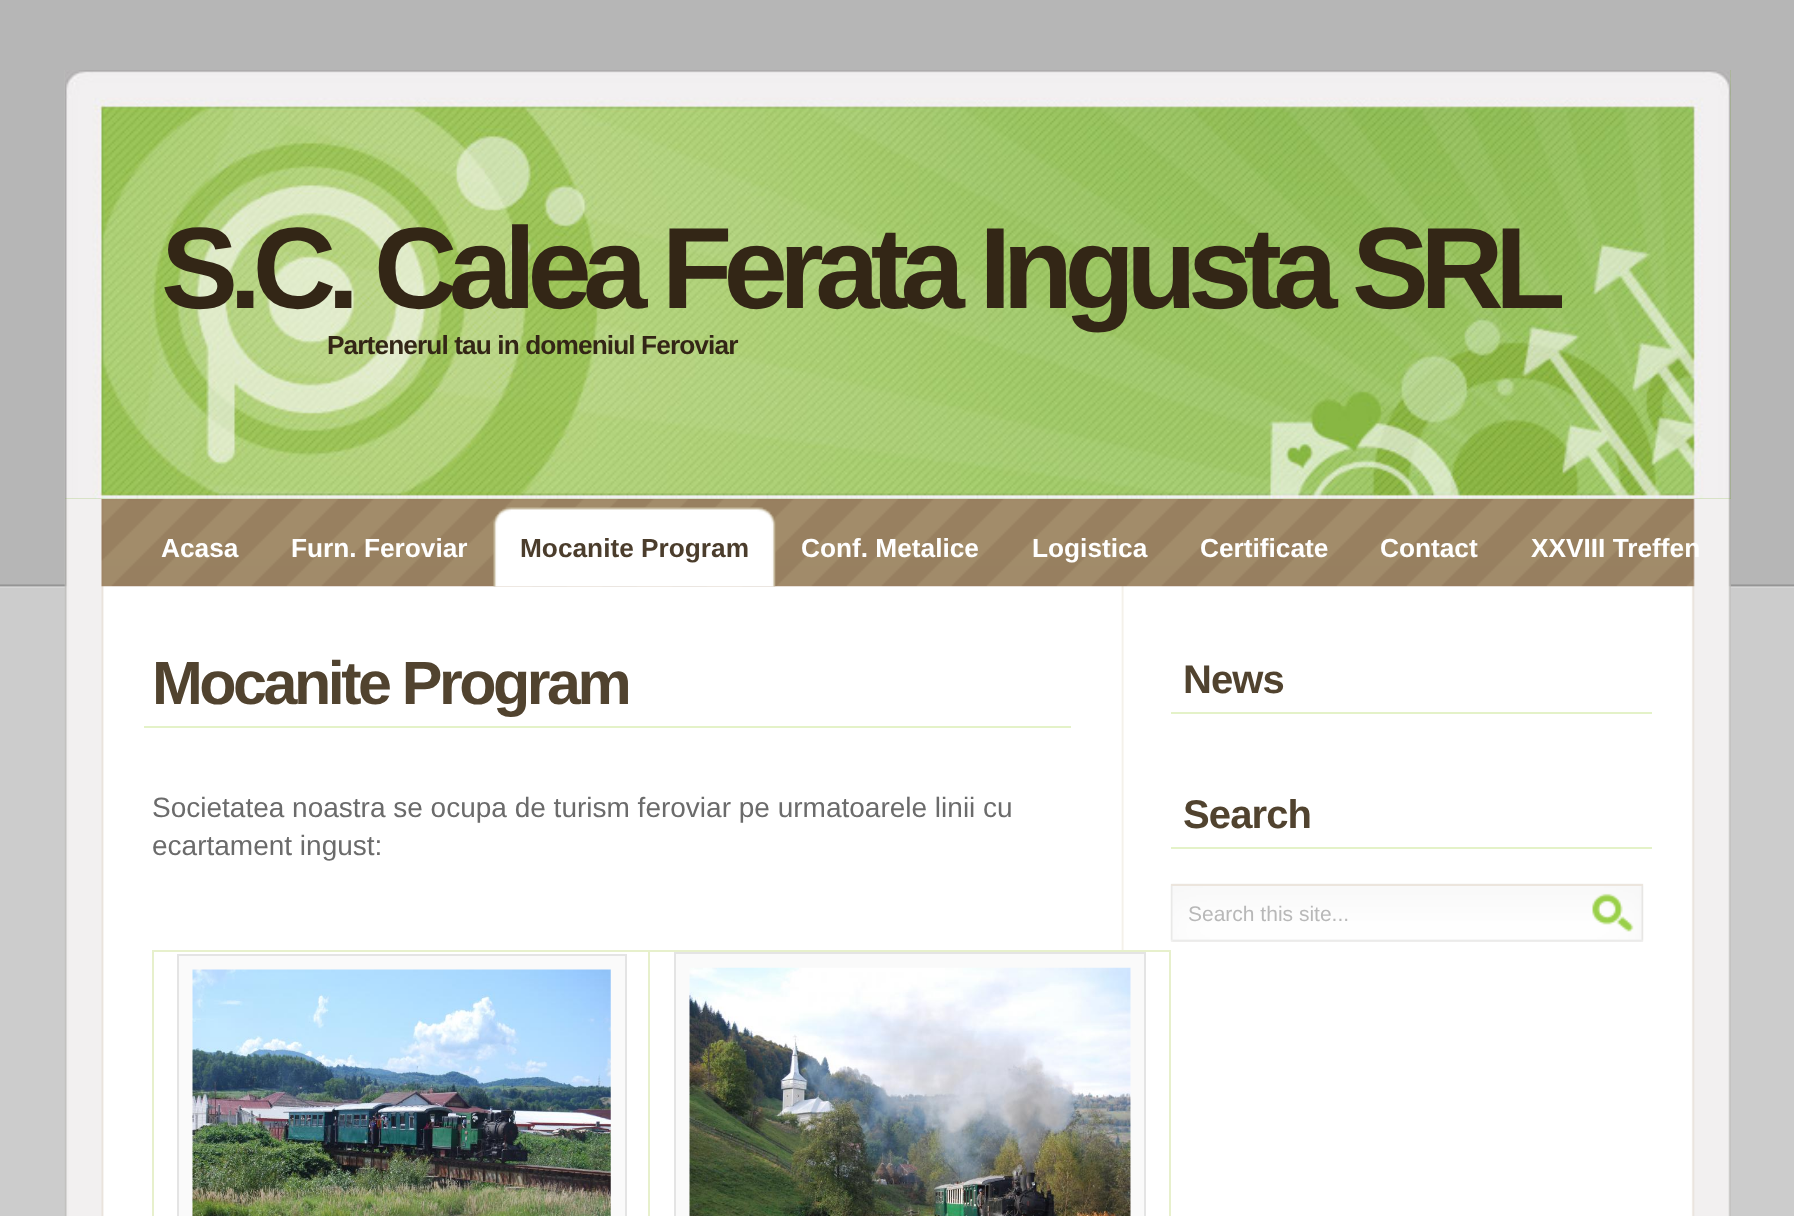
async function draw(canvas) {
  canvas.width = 1794;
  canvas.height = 1216;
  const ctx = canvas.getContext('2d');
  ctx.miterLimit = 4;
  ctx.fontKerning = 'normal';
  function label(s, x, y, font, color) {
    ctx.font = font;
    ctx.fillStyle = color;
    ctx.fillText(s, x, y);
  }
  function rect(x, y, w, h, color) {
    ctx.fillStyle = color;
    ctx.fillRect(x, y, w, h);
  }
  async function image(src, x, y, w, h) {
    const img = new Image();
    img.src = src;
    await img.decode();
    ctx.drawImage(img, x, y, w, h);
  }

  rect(0, 0, 1794, 1216, '#ccc');
  await image('assets/img1.png', 0, 0, 1794, 588);
  await image('assets/img2.png', 64, 70, 1667, 1146);
  rect(65, 70, 1666, 429, '#8ab84b');
  await image('assets/img3.png', 65, 70, 1666, 429);
  ctx.letterSpacing = '-8.75px';
  label('S.C. Calea Ferata Ingusta SRL', 161, 308, 'bold 115.5px Liberation Sans', '#332616');
  ctx.letterSpacing = '-0.9px';
  label('Partenerul tau in domeniul Feroviar', 327, 354, 'bold 26.25px Liberation Sans', '#332616');
  await image('assets/img4.png', 65, 499, 1666, 88);
  ctx.letterSpacing = '0px';
  label('Acasa', 161, 557, 'bold 26.25px Liberation Sans', '#fff');
  label('Furn. Feroviar', 291, 557, 'bold 26.25px Liberation Sans', '#fff');
  await image('assets/img5.png', 493, 507, 18, 80);
  await image('assets/img6.png', 511, 507, 265, 80);
  label('Mocanite Program', 520, 557, 'bold 26.25px Liberation Sans', '#4b3d2c');
  label('Conf. Metalice', 801, 557, 'bold 26.25px Liberation Sans', '#fff');
  label('Logistica', 1032, 557, 'bold 26.25px Liberation Sans', '#fff');
  label('Certificate', 1200, 557, 'bold 26.25px Liberation Sans', '#fff');
  label('Contact', 1380, 557, 'bold 26.25px Liberation Sans', '#fff');
  label('XXVIII Treffen', 1531, 557, 'bold 26.25px Liberation Sans', '#fff');
  rect(144, 726, 927, 2, '#e4f2c8');
  ctx.letterSpacing = '-3.5px';
  label('Mocanite Program', 152, 704, 'bold 61px Liberation Sans', '#51432f');
  ctx.letterSpacing = '0px';
  label('Societatea noastra se ocupa de turism feroviar pe urmatoarele linii cu', 152, 817, '28px Liberation Sans', '#6b6b6b');
  label('ecartament ingust:', 152, 855, '28px Liberation Sans', '#6b6b6b');
  rect(1121, 952, 3, 264, '#fff');
  rect(648, 950, 523, 2, '#e7f0cc');
  rect(648, 950, 2, 266, '#e7f0cc');
  rect(152, 950, 497, 2, '#e7f0cc');
  rect(152, 950, 2, 266, '#e7f0cc');
  ctx.fillStyle = '#fafafa';
  ctx.beginPath();
  ctx.rect(178, 955, 448, 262);
  ctx.fill();
  ctx.strokeStyle = '#e4e4e4';
  ctx.lineWidth = 2;
  ctx.stroke();
  await image('assets/img7.png', 192, 969, 419, 247);
  rect(1169, 950, 2, 266, '#e7f0cc');
  ctx.fillStyle = '#fafafa';
  ctx.beginPath();
  ctx.rect(675, 953, 470, 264);
  ctx.fill();
  ctx.stroke();
  await image('assets/img8.png', 689, 967, 442, 249);
  rect(1171, 712, 481, 2, '#e4f2c8');
  ctx.letterSpacing = '-0.9px';
  label('News', 1183, 693, 'bold 40px Liberation Sans', '#51432f');
  rect(1171, 847, 481, 2, '#e4f2c8');
  label('Search', 1183, 828, 'bold 40px Liberation Sans', '#51432f');
  rect(1171, 941, 472, 1, '#f2f0f0');
  await image('assets/img9.png', 1170, 883, 474, 59);
  rect(1171, 884, 472, 2, '#ece5dd');
  ctx.letterSpacing = '0px';
  label('Search this site...', 1188, 921, '21px Liberation Sans', '#b8b8b8');
  await image('assets/img10.png', 1592, 893, 42, 39);
}

draw(document.querySelector('canvas'));
